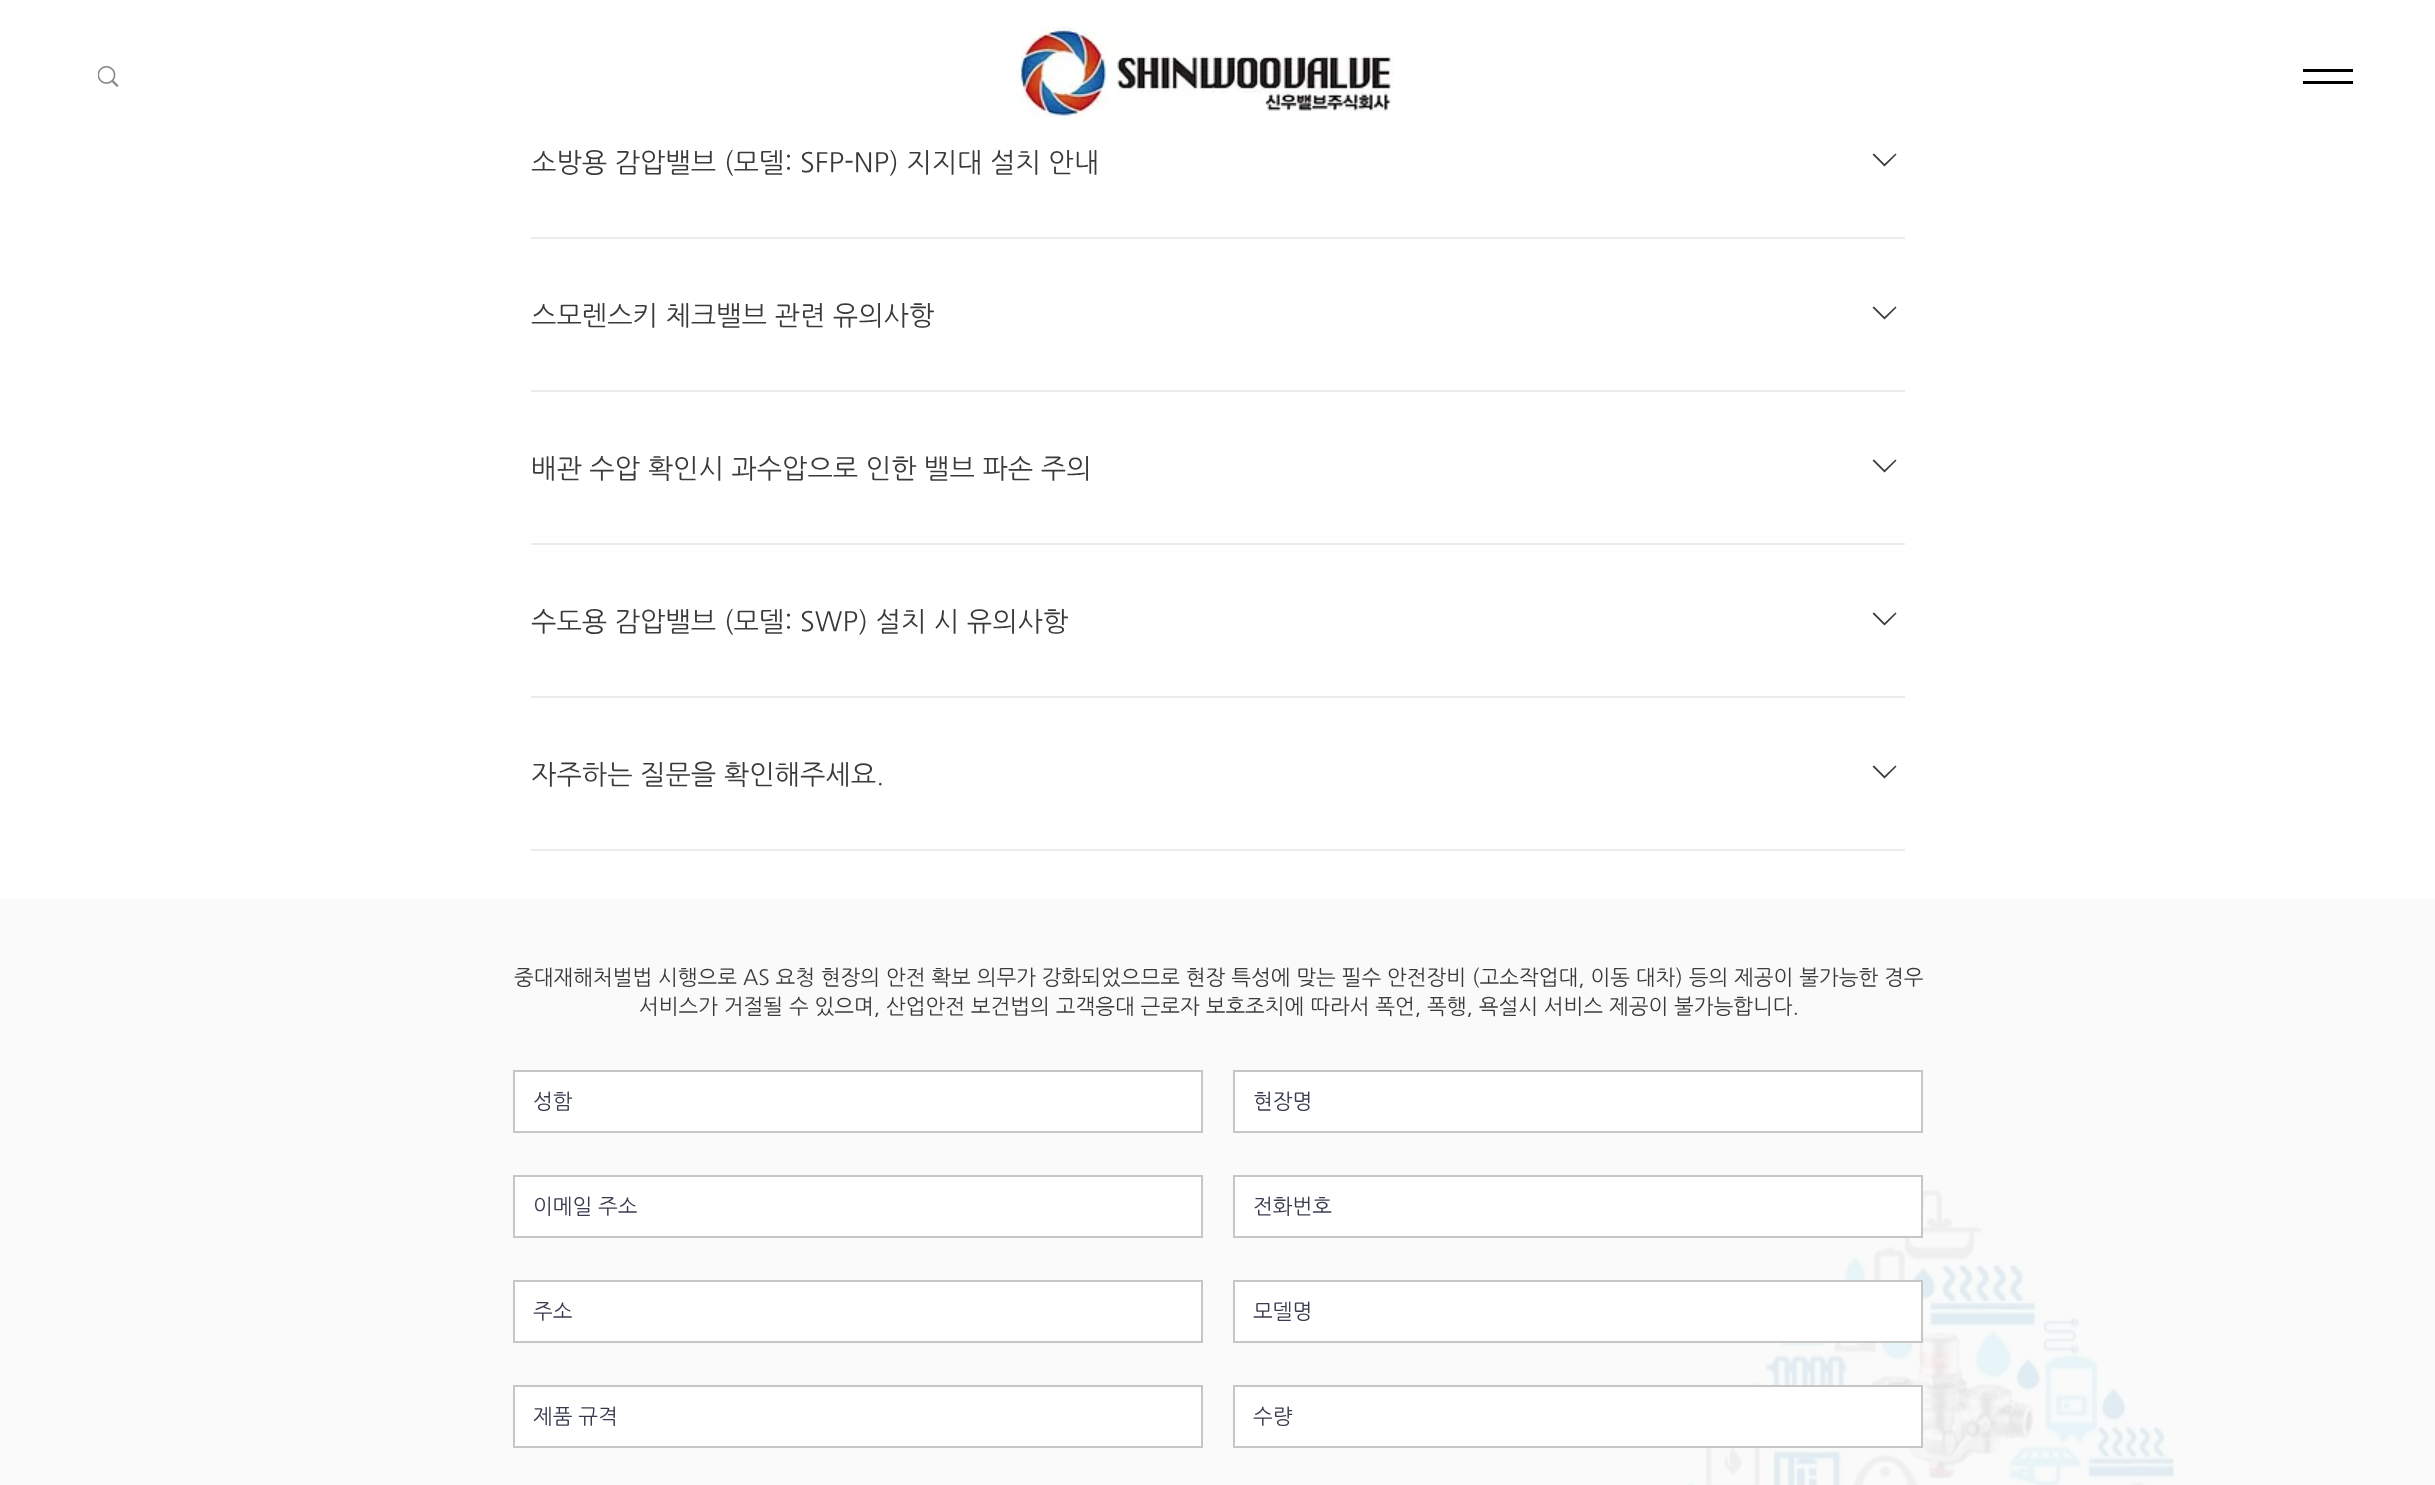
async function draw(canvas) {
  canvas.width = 2435;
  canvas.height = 1485;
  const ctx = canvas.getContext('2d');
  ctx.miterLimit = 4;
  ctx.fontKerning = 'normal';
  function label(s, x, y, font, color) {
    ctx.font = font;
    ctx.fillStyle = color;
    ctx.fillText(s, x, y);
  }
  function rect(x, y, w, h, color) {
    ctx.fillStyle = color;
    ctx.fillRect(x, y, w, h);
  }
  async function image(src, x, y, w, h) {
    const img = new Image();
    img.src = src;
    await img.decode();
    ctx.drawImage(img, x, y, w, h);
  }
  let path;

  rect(0, 0, 2435, 1485, '#fff');
  await image('assets/img1.png', 98, 66, 21, 21);
  await image('assets/img2.png', 1015, 21, 379, 98);
  label('소방용 감압밸브 (모델: SFP-NP) 지지대 설치 안내', 531, 171, '27px NanumGothic', '#3b3a3a');
  rect(575, 149, 522, 1, '#fff');
  rect(2303, 69, 50, 3, '#000');
  rect(2303, 81, 50, 3, '#000');
  ctx.fillStyle = '#3b3a3a';
  path = new Path2D('M1895.5 153.5L1896.5 154.5L1884.5 166.5L1872.5 154.5L1874 153.5L1884.5 164Z');
  ctx.fill(path, 'evenodd');
  rect(531, 237, 1374, 2, '#ebebeb');
  label('스모렌스키 체크밸브 관련 유의사항', 531, 324, '27px NanumGothic', '#3b3a3a');
  path = new Path2D('M1895.5 306.5L1896.5 307.5L1884.5 319.5L1872.5 307.5L1874 306.5L1884.5 317Z');
  ctx.fill(path, 'evenodd');
  rect(531, 390, 1374, 2, '#ebebeb');
  label('배관 수압 확인시 과수압으로 인한 밸브 파손 주의', 531, 477, '27px NanumGothic', '#3b3a3a');
  path = new Path2D('M1895.5 459.5L1896.5 460.5L1884.5 472.5L1872.5 460.5L1874 459.5L1884.5 470Z');
  ctx.fill(path, 'evenodd');
  rect(531, 543, 1374, 2, '#ebebeb');
  label('수도용 감압밸브 (모델: SWP) 설치 시 유의사항', 531, 630, '27px NanumGothic', '#3b3a3a');
  path = new Path2D('M1895.5 612.5L1896.5 613.5L1884.5 625.5L1872.5 613.5L1874 612.5L1884.5 623Z');
  ctx.fill(path, 'evenodd');
  rect(531, 696, 1374, 2, '#ebebeb');
  label('자주하는 질문을 확인해주세요.', 531, 783, '27px NanumGothic', '#3b3a3a');
  path = new Path2D('M1895.5 765.5L1896.5 766.5L1884.5 778.5L1872.5 766.5L1874 765.5L1884.5 776Z');
  ctx.fill(path, 'evenodd');
  rect(531, 849, 1374, 2, '#ebebeb');
  rect(0, 899, 2435, 586, '#fafafa');
  await image('assets/img3.png', 1687, 1190, 487, 295);
  label('중대재해처벌법 시행으로 AS 요청 현장의 안전 확보 의무가 강화되었으므로 현장 특성에 맞는 필수 안전장비 (고소작업대, 이동 대차) 등의 제공이 불가능한 경우', 514, 984, '21px NanumGothic', '#3b3a3a');
  label('서비스가 거절될 수 있으며, 산업안전 보건법의 고객응대 근로자 보호조치에 따라서 폭언, 폭행, 욕설시 서비스 제공이 불가능합니다.', 639, 1013, '21px NanumGothic', '#3b3a3a');
  ctx.fillStyle = '#fff';
  ctx.beginPath();
  ctx.rect(514, 1071, 688, 61);
  ctx.fill();
  ctx.strokeStyle = '#c6c6c6';
  ctx.lineWidth = 2;
  ctx.stroke();
  label('성함', 533, 1108, '21px NanumGothic', '#373b4d');
  ctx.fillStyle = '#fff';
  ctx.beginPath();
  ctx.rect(1234, 1071, 688, 61);
  ctx.fill();
  ctx.stroke();
  label('현장명', 1253, 1108, '21px NanumGothic', '#373b4d');
  ctx.fillStyle = '#fff';
  ctx.beginPath();
  ctx.rect(514, 1176, 688, 61);
  ctx.fill();
  ctx.stroke();
  label('이메일 주소', 533, 1213, '21px NanumGothic', '#373b4d');
  ctx.fillStyle = '#fff';
  ctx.beginPath();
  ctx.rect(1234, 1176, 688, 61);
  ctx.fill();
  ctx.stroke();
  label('전화번호', 1253, 1213, '21px NanumGothic', '#373b4d');
  ctx.fillStyle = '#fff';
  ctx.beginPath();
  ctx.rect(514, 1281, 688, 61);
  ctx.fill();
  ctx.stroke();
  label('주소', 533, 1318, '21px NanumGothic', '#373b4d');
  ctx.fillStyle = '#fff';
  ctx.beginPath();
  ctx.rect(1234, 1281, 688, 61);
  ctx.fill();
  ctx.stroke();
  label('모델명', 1253, 1318, '21px NanumGothic', '#373b4d');
  ctx.fillStyle = '#fff';
  ctx.beginPath();
  ctx.rect(514, 1386, 688, 61);
  ctx.fill();
  ctx.stroke();
  label('제품 규격', 533, 1423, '21px NanumGothic', '#373b4d');
  ctx.fillStyle = '#fff';
  ctx.beginPath();
  ctx.rect(1234, 1386, 688, 61);
  ctx.fill();
  ctx.stroke();
  label('수량', 1253, 1423, '21px NanumGothic', '#373b4d');
}

draw(document.querySelector('canvas'));
